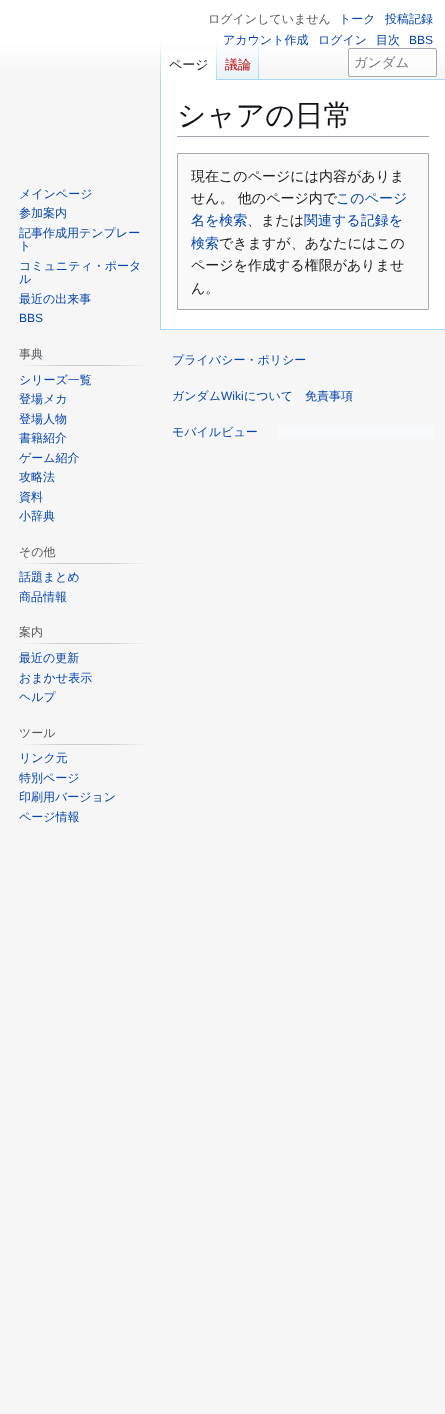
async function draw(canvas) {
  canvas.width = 445;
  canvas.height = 1414;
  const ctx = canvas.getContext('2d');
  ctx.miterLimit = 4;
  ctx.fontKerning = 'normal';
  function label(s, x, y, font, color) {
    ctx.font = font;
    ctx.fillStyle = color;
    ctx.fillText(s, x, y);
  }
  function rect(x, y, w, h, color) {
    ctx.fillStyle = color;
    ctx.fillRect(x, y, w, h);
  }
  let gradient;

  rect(0, 0, 445, 1414, '#f6f6f6');
  gradient = ctx.createLinearGradient(223, 0, 223, 80);
  gradient.addColorStop(0.5, '#fff');
  gradient.addColorStop(1, '#f6f6f6');
  ctx.fillStyle = gradient;
  ctx.fillRect(0, 0, 445, 69);
  label('ログインしていません', 208, 23, '500 12px WenQuanYi Zen Hei', '#54595d');
  label('トーク', 339, 23, '500 12px WenQuanYi Zen Hei', '#0645ad');
  label('投稿記録', 385, 23, '500 12px WenQuanYi Zen Hei', '#0645ad');
  label('アカウント作成', 223, 44, '500 12px WenQuanYi Zen Hei', '#0645ad');
  label('ログイン', 318, 44, '500 12px WenQuanYi Zen Hei', '#0645ad');
  label('目次', 376, 44, '500 12px WenQuanYi Zen Hei', '#0645ad');
  label('BBS', 409, 44, '12px Liberation Sans', '#0645ad');
  rect(160, 329, 285, 1, '#a7d7f9');
  rect(160, 79, 1, 251, '#a7d7f9');
  gradient = ctx.createLinearGradient(161, 40, 161, 80);
  gradient.addColorStop(0, '#a7d7f900');
  gradient.addColorStop(1, '#a7d7f9');
  ctx.fillStyle = gradient;
  ctx.fillRect(160, 40, 1, 40);
  rect(161, 51, 55, 29, '#fff');
  gradient = ctx.createLinearGradient(217, 40, 217, 80);
  gradient.addColorStop(0, '#fff');
  gradient.addColorStop(1, '#a7d7f9');
  ctx.fillStyle = gradient;
  ctx.fillRect(216, 40, 1, 40);
  label('ページ', 169, 69, '500 13px WenQuanYi Zen Hei', '#202122');
  gradient = ctx.createLinearGradient(238, 80, 238, 40);
  gradient.addColorStop(0, '#77c1f6');
  gradient.addColorStop(0.03, '#e8f2f8');
  gradient.addColorStop(1, '#fff');
  ctx.fillStyle = gradient;
  ctx.fillRect(217, 46, 42, 34);
  gradient = ctx.createLinearGradient(259, 40, 259, 80);
  gradient.addColorStop(0, '#a7d7f900');
  gradient.addColorStop(1, '#a7d7f9');
  ctx.fillStyle = gradient;
  ctx.fillRect(258, 40, 1, 40);
  label('議論', 225, 69, '500 13px WenQuanYi Zen Hei', '#ba0000');
  ctx.fillStyle = '#ffffff80';
  ctx.beginPath();
  ctx.roundRect(348.5, 48.5, 88, 28, 1.5);
  ctx.fill();
  ctx.strokeStyle = '#a2a9b1';
  ctx.stroke();
  label('ガンダム', 354, 67, '500 13.5px WenQuanYi Zen Hei', '#72777d');
  label('メインページ', 19, 198, '500 12px WenQuanYi Zen Hei', '#0645ad');
  label('参加案内', 19, 217, '500 12px WenQuanYi Zen Hei', '#0645ad');
  label('記事作成用テンプレー', 19, 237, '500 12px WenQuanYi Zen Hei', '#0645ad');
  label('ト', 19, 250, '500 12px WenQuanYi Zen Hei', '#0645ad');
  label('コミュニティ・ポータ', 19, 270, '500 12px WenQuanYi Zen Hei', '#0645ad');
  label('ル', 19, 283, '500 12px WenQuanYi Zen Hei', '#0645ad');
  label('最近の出来事', 19, 303, '500 12px WenQuanYi Zen Hei', '#0645ad');
  label('BBS', 19, 322, '12px Liberation Sans', '#0645ad');
  gradient = ctx.createLinearGradient(19, 366, 150, 366);
  gradient.addColorStop(0, '#f6f6f6');
  gradient.addColorStop(0.33, '#c8ccd1');
  gradient.addColorStop(0.66, '#c8ccd1');
  gradient.addColorStop(1, '#f6f6f6');
  ctx.fillStyle = gradient;
  ctx.fillRect(19, 365, 131, 1);
  label('事典', 19, 358, '500 12px WenQuanYi Zen Hei', '#54595d');
  label('シリーズ一覧', 19, 384, '500 12px WenQuanYi Zen Hei', '#0645ad');
  label('登場メカ', 19, 403, '500 12px WenQuanYi Zen Hei', '#0645ad');
  label('登場人物', 19, 423, '500 12px WenQuanYi Zen Hei', '#0645ad');
  label('書籍紹介', 19, 442, '500 12px WenQuanYi Zen Hei', '#0645ad');
  label('ゲーム紹介', 19, 462, '500 12px WenQuanYi Zen Hei', '#0645ad');
  label('攻略法', 19, 481, '500 12px WenQuanYi Zen Hei', '#0645ad');
  label('資料', 19, 501, '500 12px WenQuanYi Zen Hei', '#0645ad');
  label('小辞典', 19, 520, '500 12px WenQuanYi Zen Hei', '#0645ad');
  gradient = ctx.createLinearGradient(19, 564, 150, 564);
  gradient.addColorStop(0, '#f6f6f6');
  gradient.addColorStop(0.33, '#c8ccd1');
  gradient.addColorStop(0.66, '#c8ccd1');
  gradient.addColorStop(1, '#f6f6f6');
  ctx.fillStyle = gradient;
  ctx.fillRect(19, 563, 131, 1);
  label('その他', 19, 556, '500 12px WenQuanYi Zen Hei', '#54595d');
  label('話題まとめ', 19, 581, '500 12px WenQuanYi Zen Hei', '#0645ad');
  label('商品情報', 19, 601, '500 12px WenQuanYi Zen Hei', '#0645ad');
  gradient = ctx.createLinearGradient(19, 644, 150, 644);
  gradient.addColorStop(0, '#f6f6f6');
  gradient.addColorStop(0.33, '#c8ccd1');
  gradient.addColorStop(0.66, '#c8ccd1');
  gradient.addColorStop(1, '#f6f6f6');
  ctx.fillStyle = gradient;
  ctx.fillRect(19, 643, 131, 1);
  label('案内', 19, 636, '500 12px WenQuanYi Zen Hei', '#54595d');
  label('最近の更新', 19, 662, '500 12px WenQuanYi Zen Hei', '#0645ad');
  label('おまかせ表示', 19, 682, '500 12px WenQuanYi Zen Hei', '#0645ad');
  label('ヘルプ', 19, 701, '500 12px WenQuanYi Zen Hei', '#0645ad');
  gradient = ctx.createLinearGradient(19, 745, 150, 745);
  gradient.addColorStop(0, '#f6f6f6');
  gradient.addColorStop(0.33, '#c8ccd1');
  gradient.addColorStop(0.66, '#c8ccd1');
  gradient.addColorStop(1, '#f6f6f6');
  ctx.fillStyle = gradient;
  ctx.fillRect(19, 744, 131, 1);
  label('ツール', 19, 737, '500 12px WenQuanYi Zen Hei', '#54595d');
  label('リンク元', 19, 762, '500 12px WenQuanYi Zen Hei', '#0645ad');
  label('特別ページ', 19, 782, '500 12px WenQuanYi Zen Hei', '#0645ad');
  label('印刷用バージョン', 19, 801, '500 12px WenQuanYi Zen Hei', '#0645ad');
  label('ページ情報', 19, 821, '500 12px WenQuanYi Zen Hei', '#0645ad');
  rect(161, 80, 284, 249, '#fff');
  rect(259, 79, 186, 1, '#a7d7f9');
  rect(177, 136, 252, 1, '#a2a9b1');
  label('シャアの日常', 177, 125, '500 28.75px WenQuanYi Zen Hei', '#101418');
  ctx.fillStyle = '#f9f9f9';
  ctx.beginPath();
  ctx.rect(177.5, 153.5, 251, 156);
  ctx.fill();
  ctx.strokeStyle = '#aaa';
  ctx.stroke();
  label('現在このページには内容がありま', 191, 181, '500 14px WenQuanYi Zen Hei', '#202122');
  label('せん。 他のページ内で', 191, 203, '500 14px WenQuanYi Zen Hei', '#202122');
  label('このページ', 336, 203, '500 14px WenQuanYi Zen Hei', '#0645ad');
  label('名を検索', 191, 225, '500 14px WenQuanYi Zen Hei', '#0645ad');
  label('、または', 247, 225, '500 14px WenQuanYi Zen Hei', '#202122');
  label('関連する記録を', 304, 225, '500 14px WenQuanYi Zen Hei', '#0645ad');
  label('検索', 191, 248, '500 14px WenQuanYi Zen Hei', '#0645ad');
  label('できますが、あなたにはこの', 219, 248, '500 14px WenQuanYi Zen Hei', '#202122');
  label('ページを作成する権限がありませ', 191, 270, '500 14px WenQuanYi Zen Hei', '#202122');
  label('ん。', 191, 293, '500 14px WenQuanYi Zen Hei', '#202122');
  label('プライバシー・ポリシー', 172, 364, '500 12px WenQuanYi Zen Hei', '#0645ad');
  label('ガンダム', 172, 400, '500 12px WenQuanYi Zen Hei', '#0645ad');
  label('Wiki', 221, 400, '12px Liberation Sans', '#0645ad');
  label('について', 244, 400, '500 12px WenQuanYi Zen Hei', '#0645ad');
  label('免責事項', 305, 400, '500 12px WenQuanYi Zen Hei', '#0645ad');
  label('モバイルビュー', 172, 436, '500 12px WenQuanYi Zen Hei', '#0645ad');
  rect(279, 425, 154, 14, '#f8f9fa');
}

draw(document.querySelector('canvas'));
